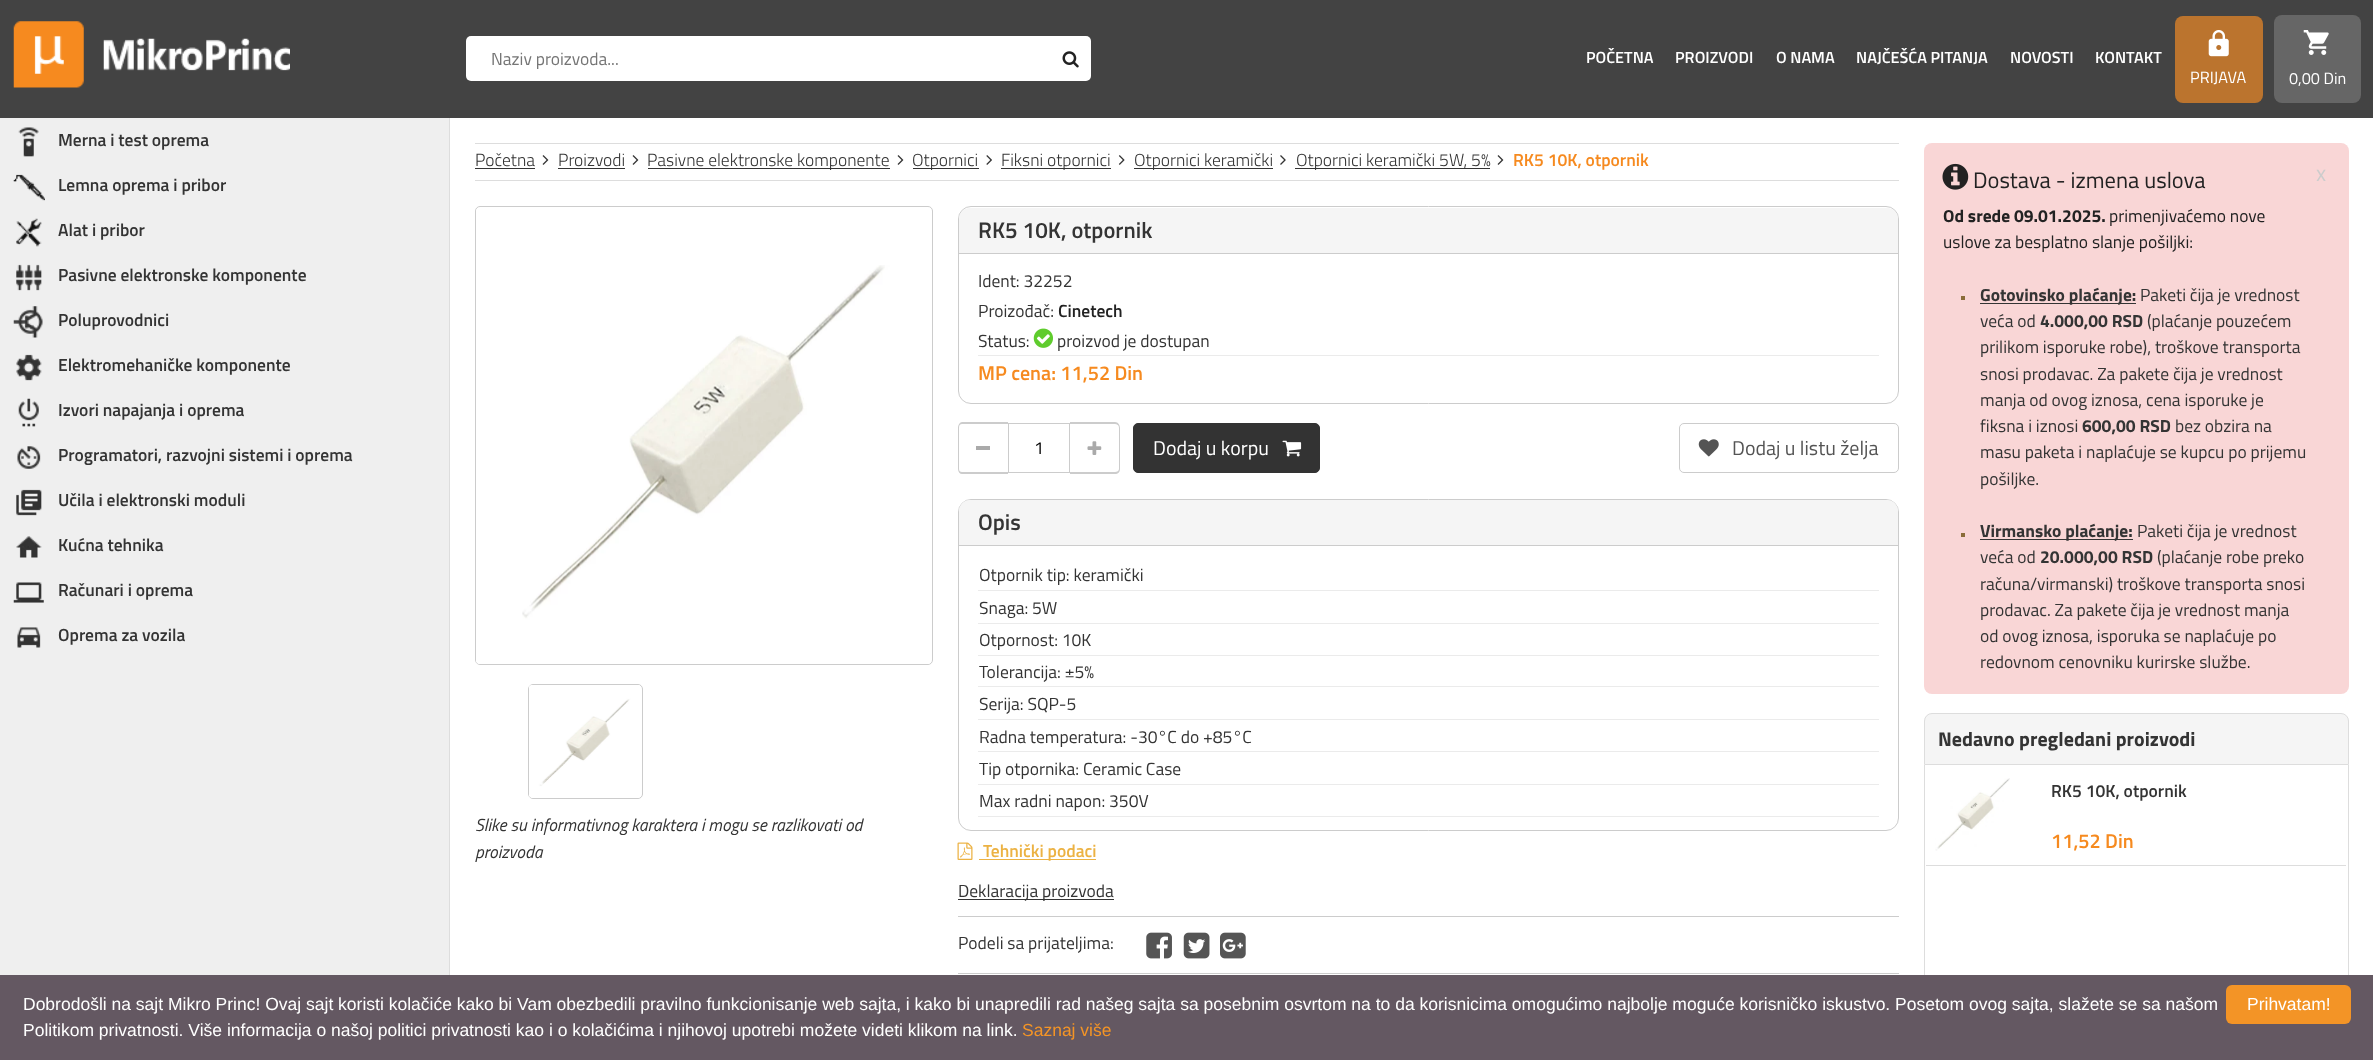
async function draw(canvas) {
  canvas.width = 2373;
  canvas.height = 1060;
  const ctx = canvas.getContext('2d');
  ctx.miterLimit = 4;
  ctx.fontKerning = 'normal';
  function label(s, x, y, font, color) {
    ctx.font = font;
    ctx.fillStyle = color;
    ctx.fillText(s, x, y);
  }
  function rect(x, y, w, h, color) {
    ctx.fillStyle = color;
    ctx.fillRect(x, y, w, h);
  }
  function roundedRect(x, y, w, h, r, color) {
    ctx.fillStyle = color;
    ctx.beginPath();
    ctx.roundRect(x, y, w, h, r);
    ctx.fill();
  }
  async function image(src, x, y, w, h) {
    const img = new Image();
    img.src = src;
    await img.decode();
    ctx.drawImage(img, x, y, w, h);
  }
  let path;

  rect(0, 0, 2373, 1060, '#fff');
  rect(0, 0, 2373, 118, '#434343');
  await image('assets/img1.png', 13, 21, 277, 67);
  roundedRect(466, 36, 625, 45, 5, '#fff');
  label('Naziv proizvoda...', 491, 65, '17.5px Titillium Web', '#757575');
  await image('assets/img2.png', 1062, 51, 17, 17);
  label('POČETNA', 1586, 63, '600 16.25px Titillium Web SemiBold', '#fff');
  label('PROIZVODI', 1675, 63, '600 16.25px Titillium Web SemiBold', '#fff');
  label('O NAMA', 1776, 63, '600 16.25px Titillium Web SemiBold', '#fff');
  label('NAJČEŠĆA PITANJA', 1856, 63, '600 16.25px Titillium Web SemiBold', '#fff');
  label('NOVOSTI', 2010, 63, '600 16.25px Titillium Web SemiBold', '#fff');
  label('KONTAKT', 2095, 63, '600 16.25px Titillium Web SemiBold', '#fff');
  roundedRect(2175, 16, 88, 87, 8, '#bb742e');
  await image('assets/img3.png', 2208, 30, 21, 27);
  label('PRIJAVA', 2190, 83, '16.25px Titillium Web', '#fff');
  roundedRect(2274, 15, 87, 88, 8, '#666');
  await image('assets/img4.png', 2303, 30, 26, 25);
  label('0,00 Din', 2289, 84, '16.25px Titillium Web', '#fff');
  rect(0, 118, 449, 857, '#efefef');
  rect(449, 118, 1, 857, '#ddd');
  await image('assets/img5.png', 18, 127, 21, 30);
  label('Merna i test oprema', 58, 146, '600 17.5px Titillium Web SemiBold', '#343434');
  await image('assets/img6.png', 13, 174, 32, 27);
  label('Lemna oprema i pribor', 58, 191, '600 17.5px Titillium Web SemiBold', '#343434');
  await image('assets/img7.png', 16, 218, 26, 29);
  label('Alat i pribor', 58, 236, '600 17.5px Titillium Web SemiBold', '#343434');
  await image('assets/img8.png', 16, 264, 26, 27);
  label('Pasivne elektronske komponente', 58, 281, '600 17.5px Titillium Web SemiBold', '#343434');
  await image('assets/img9.png', 13, 306, 30, 32);
  label('Poluprovodnici', 58, 326, '600 17.5px Titillium Web SemiBold', '#343434');
  await image('assets/img10.png', 16, 354, 26, 27);
  label('Elektromehaničke komponente', 58, 371, '600 17.5px Titillium Web SemiBold', '#343434');
  await image('assets/img11.png', 18, 398, 21, 29);
  label('Izvori napajanja i oprema', 58, 416, '600 17.5px Titillium Web SemiBold', '#343434');
  await image('assets/img12.png', 17, 446, 24, 23);
  label('Programatori, razvojni sistemi i oprema', 58, 461, '600 17.5px Titillium Web SemiBold', '#343434');
  await image('assets/img13.png', 16, 489, 26, 27);
  label('Učila i elektronski moduli', 58, 506, '600 17.5px Titillium Web SemiBold', '#343434');
  await image('assets/img14.png', 16, 536, 26, 22);
  label('Kućna tehnika', 58, 551, '600 17.5px Titillium Web SemiBold', '#343434');
  await image('assets/img15.png', 13, 582, 31, 21);
  label('Računari i oprema', 58, 596, '600 17.5px Titillium Web SemiBold', '#343434');
  await image('assets/img16.png', 17, 627, 24, 21);
  label('Oprema za vozila', 58, 641, '600 17.5px Titillium Web SemiBold', '#343434');
  rect(475, 143, 1424, 1, '#ddd');
  rect(475, 180, 1424, 1, '#ddd');
  label('Početna', 475, 166, '300 17.5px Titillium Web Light', '#343434');
  rect(475, 168, 60, 1, '#333');
  await image('assets/img17.png', 542, 155, 7, 10);
  label('Proizvodi', 558, 166, '300 17.5px Titillium Web Light', '#343434');
  rect(558, 168, 67, 1, '#333');
  await image('assets/img17.png', 632, 155, 7, 10);
  rect(648, 168, 242, 1, '#333');
  label('Pasivne elektronske komponente', 647, 166, '300 17.5px Titillium Web Light', '#343434');
  await image('assets/img17.png', 897, 155, 7, 10);
  rect(913, 168, 66, 1, '#333');
  label('Otpornici', 912, 166, '300 17.5px Titillium Web Light', '#343434');
  await image('assets/img18.png', 986, 155, 6, 10);
  rect(1001, 168, 110, 1, '#333');
  label('Fiksni otpornici', 1001, 166, '300 17.5px Titillium Web Light', '#343434');
  await image('assets/img19.png', 1118, 155, 7, 10);
  rect(1134, 168, 139, 1, '#333');
  label('Otpornici keramički', 1134, 166, '300 17.5px Titillium Web Light', '#343434');
  await image('assets/img20.png', 1280, 155, 6, 10);
  rect(1295, 168, 195, 1, '#333');
  label('Otpornici keramički 5W, 5%', 1296, 166, '300 17.5px Titillium Web Light', '#343434');
  await image('assets/img17.png', 1497, 155, 7, 10);
  label('RK5 10K, otpornik', 1513, 166, '600 17.5px Titillium Web SemiBold', '#f68a1f');
  ctx.beginPath();
  ctx.roundRect(475.5, 206.5, 457, 458, 4.5);
  ctx.strokeStyle = '#ccc';
  ctx.stroke();
  roundedRect(476, 208, 455, 456, 4, '#fff');
  await image('assets/img21.png', 522, 265, 408, 399);
  ctx.beginPath();
  ctx.roundRect(528.5, 684.5, 114, 114, 4.5);
  ctx.stroke();
  roundedRect(529, 685, 112, 113, 4, '#fff');
  await image('assets/img22.png', 529, 685, 111, 112);
  label('Slike su informativnog karaktera i mogu se razlikovati od', 475, 831, 'italic 17.5px Titillium Web', '#343434');
  label('proizvoda', 475, 858, 'italic 17.5px Titillium Web', '#343434');
  ctx.beginPath();
  ctx.roundRect(958.5, 206.5, 940, 197, 12.5);
  ctx.stroke();
  ctx.fillStyle = '#f5f5f5';
  ctx.beginPath();
  ctx.roundRect(959, 208, 939, 46, [11, 11, 0, 0]);
  ctx.fill();
  rect(959, 253, 939, 1, '#ccc');
  label('RK5 10K, otpornik', 978, 238, '600 22.5px Titillium Web SemiBold', '#343434');
  label('Ident: 32252', 978, 287, '17.5px Titillium Web', '#343434');
  label('Proizođač:', 978, 317, '17.5px Titillium Web', '#343434');
  label('Cinetech', 1058, 317, '600 17.5px Titillium Web SemiBold', '#222');
  label('Status:', 978, 347, '17.5px Titillium Web', '#343434');
  await image('assets/img23.png', 1033, 328, 20, 20);
  label('proizvod je dostupan', 1057, 347, '17.5px Titillium Web', '#343434');
  rect(978, 355, 901, 1, '#ebebeb');
  label('MP cena: 11,52 Din', 978, 380, '600 20px Titillium Web SemiBold', '#f68a1f');
  ctx.fillStyle = '#ccc';
  path = new Path2D('M962 422H1008V474H962C960 474 958 472 958 469V428C958 425 960 422 962 422ZM962 424H1008V472H962C960 472 959 471 959 469V428C959 425 960 424 962 424Z');
  ctx.fill(path, 'evenodd');
  rect(976, 446, 14, 4, '#aaa');
  ctx.strokeRect(1008.5, 423.5, 61, 49);
  label('1', 1034, 454, '17.5px Titillium Web', '#000');
  ctx.fillStyle = '#ccc';
  path = new Path2D('M1070 422H1115C1118 422 1120 425 1120 428V469C1120 472 1118 474 1115 474H1070ZM1070 424H1115C1117 424 1119 425 1119 428V469C1119 471 1117 472 1115 472H1070Z');
  ctx.fill(path, 'evenodd');
  await image('assets/img24.png', 1087, 441, 15, 14);
  ctx.fillStyle = '#333';
  ctx.beginPath();
  ctx.roundRect(1133.5, 423.5, 186, 49, 4.5);
  ctx.fill();
  ctx.strokeStyle = '#333';
  ctx.stroke();
  label('Dodaj u korpu', 1153, 455, '20px Titillium Web', '#fff');
  await image('assets/img25.png', 1282, 440, 20, 17);
  ctx.beginPath();
  ctx.roundRect(1679.5, 423.5, 219, 49, 4.5);
  ctx.strokeStyle = '#ccc';
  ctx.stroke();
  await image('assets/img26.png', 1698, 439, 21, 18);
  label('Dodaj u listu želja', 1732, 455, '20px Titillium Web', '#545454');
  ctx.beginPath();
  ctx.roundRect(958.5, 499.5, 940, 331, 12.5);
  ctx.stroke();
  ctx.fillStyle = '#f5f5f5';
  ctx.beginPath();
  ctx.roundRect(959, 500, 939, 46, [11, 11, 0, 0]);
  ctx.fill();
  rect(959, 545, 939, 1, '#ccc');
  label('Opis', 978, 530, '600 22.5px Titillium Web SemiBold', '#343434');
  label('Otpornik tip: keramički', 979, 581, '17.5px Titillium Web', '#343434');
  rect(978, 590, 901, 1, '#ebebeb');
  label('Snaga: 5W', 979, 614, '17.5px Titillium Web', '#343434');
  rect(978, 623, 901, 1, '#ebebeb');
  label('Otpornost: 10K', 979, 646, '17.5px Titillium Web', '#343434');
  rect(978, 655, 901, 1, '#ebebeb');
  label('Tolerancija: ±5%', 979, 678, '17.5px Titillium Web', '#343434');
  rect(978, 686, 901, 1, '#ebebeb');
  label('Serija: SQP-5', 979, 710, '17.5px Titillium Web', '#343434');
  rect(978, 719, 901, 1, '#ebebeb');
  label('Radna temperatura: -30°C do +85°C', 979, 743, '17.5px Titillium Web', '#343434');
  rect(978, 751, 901, 1, '#ebebeb');
  label('Tip otpornika: Ceramic Case', 979, 775, '17.5px Titillium Web', '#343434');
  rect(978, 784, 901, 1, '#ebebeb');
  label('Max radni napon: 350V', 979, 807, '17.5px Titillium Web', '#343434');
  rect(978, 816, 901, 1, '#ebebeb');
  await image('assets/img27.png', 957, 842, 16, 18);
  rect(979, 859, 117, 1, '#ecb243');
  label('Tehnički podaci', 983, 857, '600 17.5px Titillium Web SemiBold', '#ecb243');
  rect(958, 899, 156, 1, '#343434');
  label('Deklaracija proizvoda', 958, 897, '17.5px Titillium Web', '#343434');
  rect(958, 916, 941, 1, '#ccc');
  rect(958, 973, 941, 1, '#ccc');
  label('Podeli sa prijateljima:', 958, 949, '17.5px Titillium Web', '#343434');
  await image('assets/img28.png', 1146, 932, 26, 27);
  await image('assets/img29.png', 1183, 932, 27, 27);
  await image('assets/img30.png', 1220, 932, 26, 27);
  roundedRect(1924, 143, 425, 551, 8, '#f9d6d6');
  await image('assets/img31.png', 1942, 163, 27, 27);
  label('Dostava - izmena uslova', 1973, 188, '22.5px Titillium Web', '#222');
  label('x', 2316, 181, '22.5px Titillium Web', '#ccc');
  label('Od srede 09.01.2025.', 1943, 222, 'bold 17.5px Titillium Web', '#222');
  label('primenjivaćemo nove', 2109, 222, '17.5px Titillium Web', '#222');
  label('uslove za besplatno slanje pošiljki:', 1943, 248, '17.5px Titillium Web', '#222');
  rect(1961, 296, 4, 4, '#8a6c39');
  rect(1980, 303, 156, 1, '#343434');
  label('Gotovinsko plaćanje:', 1980, 301, 'bold 17.5px Titillium Web', '#343434');
  label('Paketi čija je vrednost', 2140, 301, '17.5px Titillium Web', '#343434');
  label('veća od', 1980, 327, '17.5px Titillium Web', '#343434');
  label('4.000,00 RSD', 2040, 327, 'bold 17.5px Titillium Web', '#343434');
  label('(plaćanje pouzećem', 2147, 327, '17.5px Titillium Web', '#343434');
  label('prilikom isporuke robe), troškove transporta', 1980, 353, '17.5px Titillium Web', '#343434');
  label('snosi prodavac. Za pakete čija je vrednost', 1980, 380, '17.5px Titillium Web', '#343434');
  label('manja od ovog iznosa, cena isporuke je', 1980, 406, '17.5px Titillium Web', '#343434');
  label('fiksna i iznosi', 1980, 432, '17.5px Titillium Web', '#343434');
  label('600,00 RSD', 2082, 432, 'bold 17.5px Titillium Web', '#343434');
  label('bez obzira na', 2175, 432, '17.5px Titillium Web', '#343434');
  label('masu paketa i naplaćuje se kupcu po prijemu', 1980, 458, '17.5px Titillium Web', '#343434');
  label('pošiljke.', 1980, 485, '17.5px Titillium Web', '#343434');
  rect(1961, 533, 4, 4, '#8a6c39');
  rect(1980, 539, 153, 1, '#343434');
  label('Virmansko plaćanje:', 1980, 537, 'bold 17.5px Titillium Web', '#343434');
  label('Paketi čija je vrednost', 2137, 537, '17.5px Titillium Web', '#343434');
  label('veća od', 1980, 563, '17.5px Titillium Web', '#343434');
  label('20.000,00 RSD', 2040, 563, 'bold 17.5px Titillium Web', '#343434');
  label('(plaćanje robe preko', 2157, 563, '17.5px Titillium Web', '#343434');
  label('računa/virmanski) troškove transporta snosi', 1980, 590, '17.5px Titillium Web', '#343434');
  label('prodavac. Za pakete čija je vrednost manja', 1980, 616, '17.5px Titillium Web', '#343434');
  label('od ovog iznosa, isporuka se naplaćuje po', 1980, 642, '17.5px Titillium Web', '#343434');
  label('redovnom cenovniku kurirske službe.', 1980, 668, '17.5px Titillium Web', '#343434');
  ctx.fillStyle = '#f5f5f5';
  ctx.beginPath();
  ctx.roundRect(1924.5, 713.5, 424, 51, [7.5, 7.5, 0, 0]);
  ctx.fill();
  ctx.strokeStyle = '#ddd';
  ctx.stroke();
  label('Nedavno pregledani proizvodi', 1938, 746, 'bold 20px Titillium Web', '#343434');
  ctx.fillStyle = '#ddd';
  path = new Path2D('M1924 765H2349V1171C2349 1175 2345 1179 2341 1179H1931C1927 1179 1924 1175 1924 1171ZM1925 765H2348V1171C2348 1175 2345 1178 2341 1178H1931C1928 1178 1925 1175 1925 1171Z');
  ctx.fill(path, 'evenodd');
  rect(1926, 865, 420, 1, '#ddd');
  await image('assets/img32.png', 1935, 778, 75, 73);
  label('RK5 10K, otpornik', 2051, 797, '600 17.5px Titillium Web SemiBold', '#343434');
  label('11,52 Din', 2051, 848, '600 20px Titillium Web SemiBold', '#f68a1f');
  rect(0, 975, 2373, 85, '#645862');
  label('Dobrodošli na sajt Mikro Princ! Ovaj sajt koristi kolačiće kako bi Vam obezbedili pravilno funkcionisanje web sajta, i kako bi unapredili rad našeg sajta sa posebnim osvrtom na to da korisnicima omogućimo najbolje moguće korisničko iskustvo. Posetom ovog sajta, slažete se sa našom', 23, 1010, '17.5px Liberation Sans', '#fff');
  label('Politikom privatnosti. Više informacija o našoj politici privatnosti kao i o kolačićima i njihovoj upotrebi možete videti klikom na link.', 23, 1036, '17.5px Liberation Sans', '#fff');
  label('Saznaj više', 1022, 1036, '17.5px Liberation Sans', '#f39426');
  roundedRect(2226, 985, 125, 39, 6, '#f39426');
  label('Prihvatam!', 2247, 1010, '17.5px Liberation Sans', '#fff');
}

draw(document.querySelector('canvas'));
